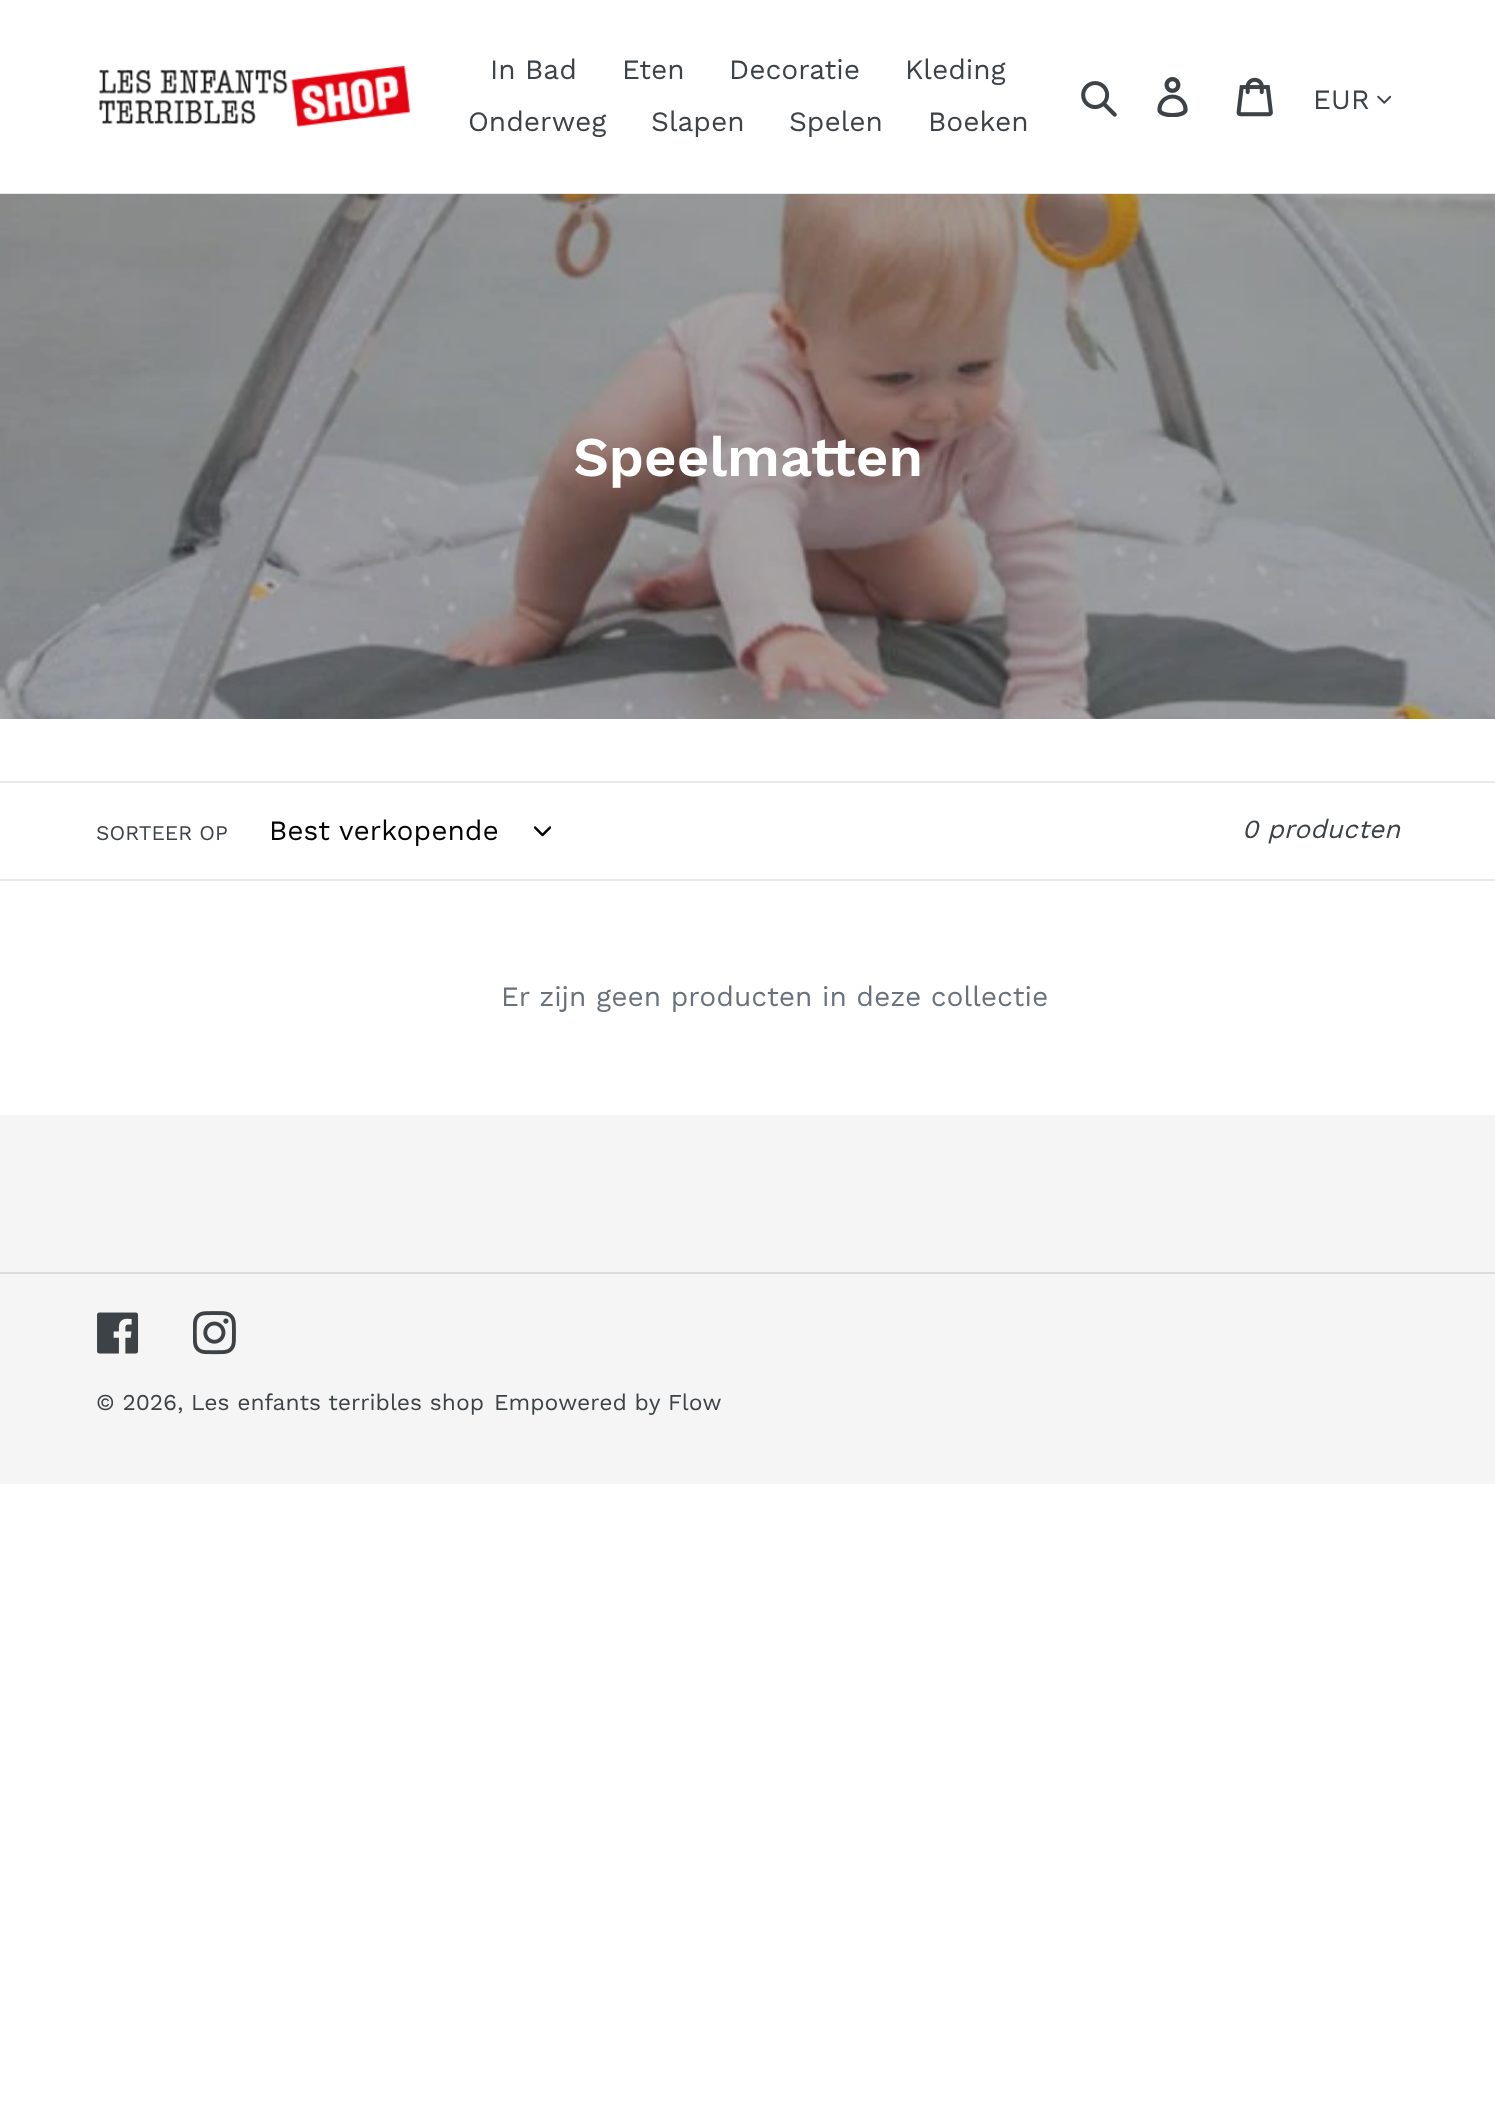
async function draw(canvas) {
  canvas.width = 1495;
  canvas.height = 2127;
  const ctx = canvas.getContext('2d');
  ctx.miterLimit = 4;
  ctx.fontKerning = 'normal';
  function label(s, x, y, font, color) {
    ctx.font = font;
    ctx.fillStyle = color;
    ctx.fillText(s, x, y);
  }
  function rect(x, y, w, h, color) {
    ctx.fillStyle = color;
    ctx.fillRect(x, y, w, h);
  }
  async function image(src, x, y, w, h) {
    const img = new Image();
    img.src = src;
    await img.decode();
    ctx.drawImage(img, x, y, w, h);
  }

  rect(0, 0, 1495, 2127, '#fff');
  rect(0, 193, 1495, 1, '#e8e9eb');
  await image('assets/img1.png', 99, 65, 311, 62);
  label('In Bad', 490, 79, '28px Work Sans', '#3d4246');
  label('Eten', 622, 79, '28px Work Sans', '#3d4246');
  label('Decoratie', 729, 79, '28px Work Sans', '#3d4246');
  label('Kleding', 905, 79, '28px Work Sans', '#3d4246');
  label('Onderweg', 468, 131, '28px Work Sans', '#3d4246');
  label('Slapen', 651, 131, '28px Work Sans', '#3d4246');
  label('Spelen', 789, 131, '28px Work Sans', '#3d4246');
  label('Boeken', 928, 131, '28px Work Sans', '#3d4246');
  await image('assets/img2.png', 1081, 81, 36, 36);
  await image('assets/img3.png', 1157, 77, 31, 40);
  await image('assets/img4.png', 1236, 77, 37, 40);
  label('EUR', 1313, 109, '28px Work Sans', '#3d4246');
  await image('assets/img5.png', 1377, 95, 14, 9);
  await image('assets/img6.png', 0, 194, 1495, 525);
  label('Speelmatten', 573, 476, '600 56px Work Sans', '#fff');
  rect(0, 781, 1495, 2, '#e8e9eb');
  rect(0, 879, 1495, 2, '#e8e9eb');
  label('SORTEER OP', 96, 840, '21px Work Sans', '#3d4246');
  label('Best verkopende', 269, 840, '28px Work Sans', '#000');
  await image('assets/img7.png', 534, 826, 17, 11);
  label('0 producten', 1242, 838, 'italic 26.25px Work Sans', '#3d4246');
  label('Er zijn geen producten in deze collectie', 501, 1006, '28px Work Sans', '#69727b');
  rect(0, 1115, 1495, 369, '#f5f5f5');
  rect(0, 1272, 1495, 2, '#dcdcdc');
  await image('assets/img8.png', 97, 1312, 42, 42);
  await image('assets/img9.png', 193, 1311, 43, 44);
  label('© 2026, Les enfants terribles shop', 96, 1410, '22.75px Work Sans', '#3d4246');
  label('Empowered by Flow', 494, 1410, '22.75px Work Sans', '#3d4246');
}

draw(document.querySelector('canvas'));
